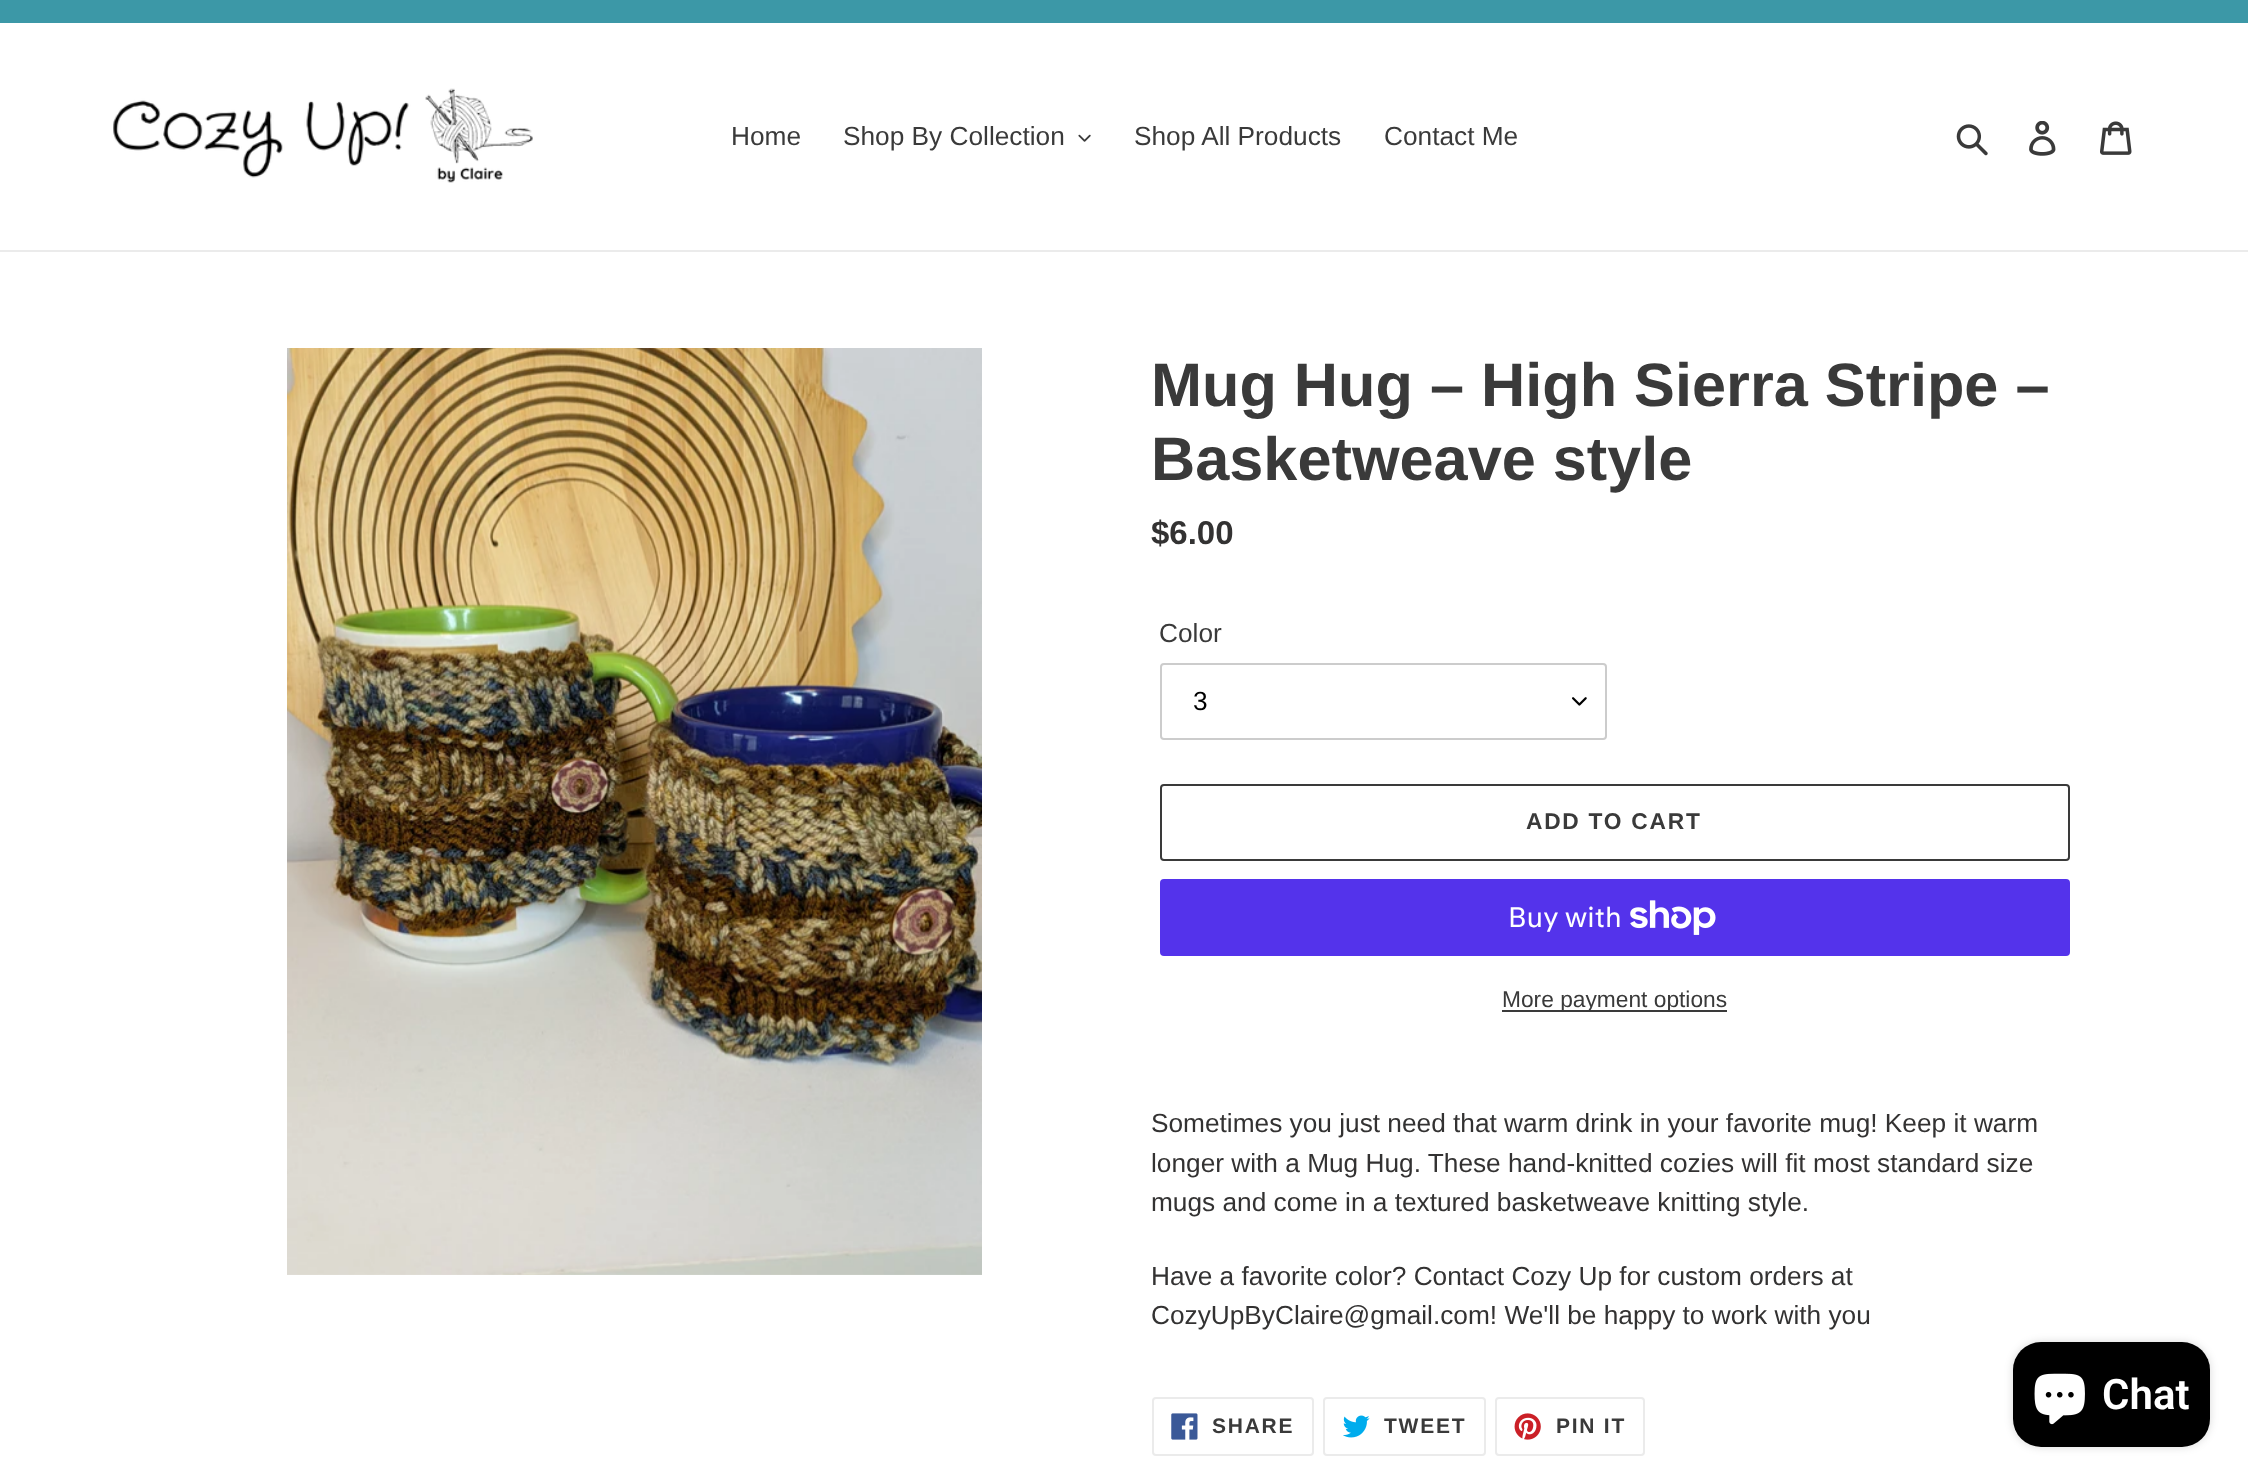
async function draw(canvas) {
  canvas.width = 2248;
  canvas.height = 1483;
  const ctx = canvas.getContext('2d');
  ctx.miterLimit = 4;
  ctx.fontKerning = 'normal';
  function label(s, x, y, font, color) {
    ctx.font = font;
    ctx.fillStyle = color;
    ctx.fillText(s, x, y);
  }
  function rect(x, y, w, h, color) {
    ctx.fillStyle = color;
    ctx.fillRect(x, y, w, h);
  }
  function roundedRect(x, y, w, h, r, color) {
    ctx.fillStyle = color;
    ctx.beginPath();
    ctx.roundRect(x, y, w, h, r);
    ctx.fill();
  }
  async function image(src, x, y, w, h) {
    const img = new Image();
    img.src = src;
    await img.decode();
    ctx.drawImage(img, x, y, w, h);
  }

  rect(0, 0, 2248, 1483, '#fff');
  rect(0, 0, 2248, 23, '#3c98a7');
  rect(0, 250, 2248, 2, '#ebebeb');
  await image('assets/img1.png', 113, 88, 420, 95);
  label('Home', 731, 145, '26.25px Liberation Sans', '#3a3a3a');
  label('Shop By Collection', 843, 145, '26.25px Liberation Sans', '#3a3a3a');
  await image('assets/img2.png', 1078, 134, 13, 8);
  label('Shop All Products', 1134, 145, '26.25px Liberation Sans', '#3a3a3a');
  label('Contact Me', 1384, 145, '26.25px Liberation Sans', '#3a3a3a');
  await image('assets/img3.png', 1956, 124, 32, 32);
  await image('assets/img4.png', 2029, 121, 27, 35);
  await image('assets/img5.png', 2100, 121, 32, 34);
  await image('assets/img6.png', 287, 348, 695, 927);
  label('Mug Hug – High Sierra Stripe –', 1151, 406, 'bold 61.25px Liberation Sans', '#3a3a3a');
  label('Basketweave style', 1151, 480, 'bold 61.25px Liberation Sans', '#3a3a3a');
  label('$6.00', 1151, 544, 'bold 33px Liberation Sans', '#333232');
  label('Color', 1159, 642, '26.25px Liberation Sans', '#3a3a3a');
  await image('assets/img7.png', 1572, 697, 15, 9);
  ctx.beginPath();
  ctx.roundRect(1161, 664, 445, 75, 3);
  ctx.strokeStyle = '#ccc';
  ctx.lineWidth = 2;
  ctx.stroke();
  label('3', 1193, 710, '26.25px Liberation Sans', '#000');
  ctx.beginPath();
  ctx.roundRect(1161, 785, 908, 75, 3);
  ctx.strokeStyle = '#3a3a3a';
  ctx.stroke();
  ctx.letterSpacing = '1.75px';
  label('ADD TO CART', 1526, 829, 'bold 22.75px Liberation Sans', '#3a3a3a');
  roundedRect(1160, 879, 910, 77, 4, '#5433eb');
  ctx.letterSpacing = '0px';
  label('Buy with', 1508, 927, '28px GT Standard', '#fff');
  await image('assets/img8.png', 1630, 900, 86, 35);
  rect(1502, 1010, 225, 2, '#3a3a3a');
  label('More payment options', 1502, 1007, '22.75px Liberation Sans', '#3a3a3a');
  label('Sometimes you just need that warm drink in your favorite mug! Keep it warm', 1151, 1132, '26.25px Liberation Sans', '#333232');
  label('longer with a Mug Hug. These hand-knitted cozies will fit most standard size', 1151, 1172, '26.25px Liberation Sans', '#333232');
  label('mugs and come in a textured basketweave knitting style.', 1151, 1211, '26.25px Liberation Sans', '#333232');
  label('Have a favorite color? Contact Cozy Up for custom orders at', 1151, 1285, '26.25px Liberation Sans', '#333232');
  label('CozyUpByClaire@gmail.com! We\'ll be happy to work with you', 1151, 1324, '26.25px Liberation Sans', '#333232');
  ctx.beginPath();
  ctx.roundRect(1153, 1398, 160, 57, 3);
  ctx.strokeStyle = '#ebebeb';
  ctx.stroke();
  await image('assets/img9.png', 1171, 1413, 27, 27);
  ctx.letterSpacing = '1.75px';
  label('SHARE', 1212, 1433, 'bold 21px Liberation Sans', '#3a3a3a');
  ctx.beginPath();
  ctx.roundRect(1324, 1398, 161, 57, 3);
  ctx.stroke();
  await image('assets/img10.png', 1343, 1415, 27, 23);
  label('TWEET', 1384, 1433, 'bold 21px Liberation Sans', '#3a3a3a');
  ctx.beginPath();
  ctx.roundRect(1496, 1398, 148, 57, 3);
  ctx.stroke();
  await image('assets/img11.png', 1514, 1413, 27, 27);
  label('PIN IT', 1556, 1433, 'bold 21px Liberation Sans', '#3a3a3a');
  ctx.fillStyle = '#00000026';
  ctx.filter = 'blur(4.5px)';
  ctx.beginPath();
  ctx.roundRect(2013, 1342, 197, 105, 28);
  ctx.fill();
  ctx.filter = 'none';
  roundedRect(2013, 1342, 197, 105, 28, '#000');
  await image('assets/img12.png', 2034, 1373, 51, 52);
  ctx.letterSpacing = '0px';
  label('Chat', 2102, 1409, '600 42px Roboto', '#fff');
}

draw(document.querySelector('canvas'));
